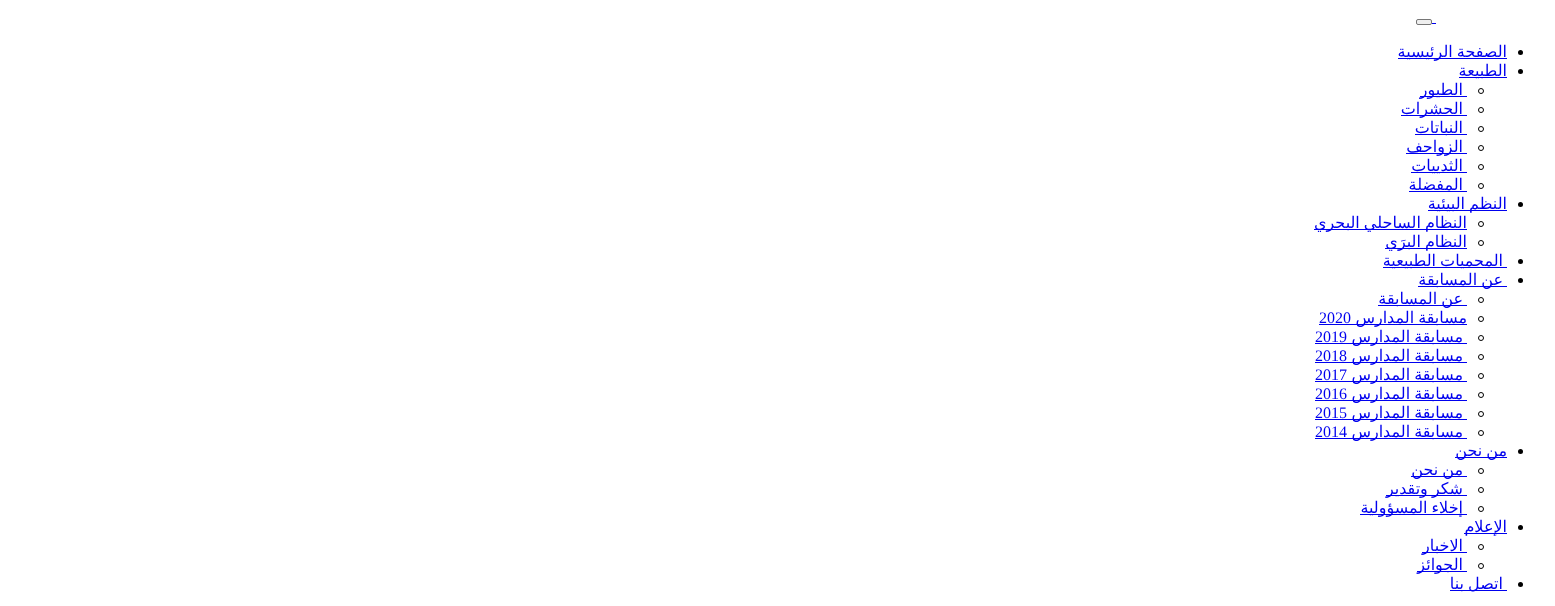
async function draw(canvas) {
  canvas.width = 1555;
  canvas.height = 606;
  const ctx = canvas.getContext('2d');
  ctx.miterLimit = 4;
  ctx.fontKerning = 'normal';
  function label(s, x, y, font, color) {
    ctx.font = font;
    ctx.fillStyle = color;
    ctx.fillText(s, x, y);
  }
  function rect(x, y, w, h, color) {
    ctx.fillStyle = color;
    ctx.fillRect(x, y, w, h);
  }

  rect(0, 0, 1555, 606, '#fff');
  rect(1432, 23, 4, 1, '#00e');
  ctx.fillStyle = '#efefef';
  ctx.beginPath();
  ctx.roundRect(1416.5, 19.5, 15, 5, 1.5);
  ctx.fill();
  ctx.strokeStyle = '#767676';
  ctx.stroke();
  ctx.fillStyle = '#000';
  ctx.beginPath();
  ctx.arc(1520.5, 52.5, 2.5, 0, 2 * Math.PI);
  ctx.fill();
  rect(1398, 58, 109, 1, '#00e');
  ctx.wordSpacing = '-1px';
  ctx.direction = 'rtl';
  label('الصفحة الرئيسية', 1507, 57, '16px DejaVu Sans', '#00e');
  ctx.fillStyle = '#000';
  ctx.beginPath();
  ctx.arc(1520.5, 71.5, 2.5, 0, 2 * Math.PI);
  ctx.fill();
  rect(1459, 77, 48, 1, '#00e');
  ctx.wordSpacing = '0px';
  label('الطبيعة', 1507, 76, '16px DejaVu Sans', '#00e');
  ctx.beginPath();
  ctx.arc(1481, 91, 2.5, 0, 2 * Math.PI);
  ctx.strokeStyle = '#000';
  ctx.stroke();
  rect(1420, 96, 47, 1, '#00e');
  label('الطيور', 1463, 95, '16px DejaVu Sans', '#00e');
  ctx.beginPath();
  ctx.arc(1481, 110, 2.5, 0, 2 * Math.PI);
  ctx.stroke();
  rect(1401, 115, 66, 1, '#00e');
  label('الحشرات', 1463, 114, '16px DejaVu Sans', '#00e');
  ctx.beginPath();
  ctx.arc(1481, 129, 2.5, 0, 2 * Math.PI);
  ctx.stroke();
  rect(1415, 134, 52, 1, '#00e');
  label('النباتات', 1463, 133, '16px DejaVu Sans', '#00e');
  ctx.beginPath();
  ctx.arc(1481, 148, 2.5, 0, 2 * Math.PI);
  ctx.stroke();
  rect(1406, 153, 61, 1, '#00e');
  label('الزواحف', 1463, 152, '16px DejaVu Sans', '#00e');
  ctx.beginPath();
  ctx.arc(1481, 167, 2.5, 0, 2 * Math.PI);
  ctx.stroke();
  rect(1411, 172, 56, 1, '#00e');
  label('الثدييات', 1463, 171, '16px DejaVu Sans', '#00e');
  ctx.beginPath();
  ctx.arc(1481, 186, 2.5, 0, 2 * Math.PI);
  ctx.stroke();
  label('المفضلة', 1463, 190, '16px DejaVu Sans', '#00e');
  rect(1409, 191, 58, 1, '#00e');
  ctx.fillStyle = '#000';
  ctx.beginPath();
  ctx.arc(1520.5, 204.5, 2.5, 0, 2 * Math.PI);
  ctx.fill();
  rect(1428, 210, 79, 1, '#00e');
  ctx.wordSpacing = '-1px';
  label('النظم البيئية', 1507, 209, '16px DejaVu Sans', '#00e');
  ctx.beginPath();
  ctx.arc(1481, 224, 2.5, 0, 2 * Math.PI);
  ctx.stroke();
  rect(1314, 229, 153, 1, '#00e');
  label('النظام الساحلي البحري', 1467, 228, '16px DejaVu Sans', '#00e');
  ctx.beginPath();
  ctx.arc(1481, 243, 2.5, 0, 2 * Math.PI);
  ctx.stroke();
  rect(1385, 248, 82, 1, '#00e');
  label('النظام البرَي', 1467, 247, '16px DejaVu Sans', '#00e');
  ctx.fillStyle = '#000';
  ctx.beginPath();
  ctx.arc(1520.5, 261.5, 2.5, 0, 2 * Math.PI);
  ctx.fill();
  rect(1383, 267, 124, 1, '#00e');
  label('المحميات الطبيعية', 1503, 266, '16px DejaVu Sans', '#00e');
  ctx.fillStyle = '#000';
  ctx.beginPath();
  ctx.arc(1520.5, 280.5, 2.5, 0, 2 * Math.PI);
  ctx.fill();
  rect(1418, 286, 89, 1, '#00e');
  label('عن المسابقة', 1503, 285, '16px DejaVu Sans', '#00e');
  ctx.beginPath();
  ctx.arc(1481, 300, 2.5, 0, 2 * Math.PI);
  ctx.stroke();
  rect(1378, 305, 89, 1, '#00e');
  label('عن المسابقة', 1463, 304, '16px DejaVu Sans', '#00e');
  ctx.beginPath();
  ctx.arc(1481, 319, 2.5, 0, 2 * Math.PI);
  ctx.stroke();
  rect(1319, 324, 148, 1, '#00e');
  label('مسابقة المدارس', 1467, 323, '16px DejaVu Sans', '#00e');
  ctx.wordSpacing = '0px';
  ctx.direction = 'ltr';
  label('2020', 1319, 323, '16px Liberation Serif', '#00e');
  ctx.beginPath();
  ctx.arc(1481, 338, 2.5, 0, 2 * Math.PI);
  ctx.stroke();
  rect(1315, 343, 152, 1, '#00e');
  ctx.wordSpacing = '-1px';
  ctx.direction = 'rtl';
  label('مسابقة المدارس', 1463, 342, '16px DejaVu Sans', '#00e');
  ctx.wordSpacing = '0px';
  ctx.direction = 'ltr';
  label('2019', 1315, 342, '16px Liberation Serif', '#00e');
  ctx.beginPath();
  ctx.arc(1481, 357, 2.5, 0, 2 * Math.PI);
  ctx.stroke();
  rect(1315, 362, 152, 1, '#00e');
  ctx.wordSpacing = '-1px';
  ctx.direction = 'rtl';
  label('مسابقة المدارس', 1463, 361, '16px DejaVu Sans', '#00e');
  ctx.wordSpacing = '0px';
  ctx.direction = 'ltr';
  label('2018', 1315, 361, '16px Liberation Serif', '#00e');
  ctx.beginPath();
  ctx.arc(1481, 376, 2.5, 0, 2 * Math.PI);
  ctx.stroke();
  rect(1315, 381, 152, 1, '#00e');
  ctx.wordSpacing = '-1px';
  ctx.direction = 'rtl';
  label('مسابقة المدارس', 1463, 380, '16px DejaVu Sans', '#00e');
  ctx.wordSpacing = '0px';
  ctx.direction = 'ltr';
  label('2017', 1315, 380, '16px Liberation Serif', '#00e');
  ctx.beginPath();
  ctx.arc(1481, 395, 2.5, 0, 2 * Math.PI);
  ctx.stroke();
  rect(1315, 400, 152, 1, '#00e');
  ctx.wordSpacing = '-1px';
  ctx.direction = 'rtl';
  label('مسابقة المدارس', 1463, 399, '16px DejaVu Sans', '#00e');
  ctx.wordSpacing = '0px';
  ctx.direction = 'ltr';
  label('2016', 1315, 399, '16px Liberation Serif', '#00e');
  ctx.beginPath();
  ctx.arc(1481, 414, 2.5, 0, 2 * Math.PI);
  ctx.stroke();
  rect(1315, 419, 152, 1, '#00e');
  ctx.wordSpacing = '-1px';
  ctx.direction = 'rtl';
  label('مسابقة المدارس', 1463, 418, '16px DejaVu Sans', '#00e');
  ctx.wordSpacing = '0px';
  ctx.direction = 'ltr';
  label('2015', 1315, 418, '16px Liberation Serif', '#00e');
  ctx.beginPath();
  ctx.arc(1481, 433, 2.5, 0, 2 * Math.PI);
  ctx.stroke();
  rect(1315, 438, 152, 1, '#00e');
  ctx.wordSpacing = '-1px';
  ctx.direction = 'rtl';
  label('مسابقة المدارس', 1463, 437, '16px DejaVu Sans', '#00e');
  ctx.wordSpacing = '0px';
  ctx.direction = 'ltr';
  label('2014', 1315, 437, '16px Liberation Serif', '#00e');
  ctx.fillStyle = '#000';
  ctx.beginPath();
  ctx.arc(1520.5, 451.5, 2.5, 0, 2 * Math.PI);
  ctx.fill();
  rect(1455, 457, 52, 1, '#00e');
  ctx.wordSpacing = '-1px';
  ctx.direction = 'rtl';
  label('من نحن', 1507, 456, '16px DejaVu Sans', '#00e');
  ctx.beginPath();
  ctx.arc(1481, 471, 2.5, 0, 2 * Math.PI);
  ctx.stroke();
  rect(1411, 476, 56, 1, '#00e');
  label('من نحن', 1463, 475, '16px DejaVu Sans', '#00e');
  ctx.beginPath();
  ctx.arc(1481, 490, 2.5, 0, 2 * Math.PI);
  ctx.stroke();
  rect(1386, 495, 81, 1, '#00e');
  label('شكر وتقدير', 1463, 494, '16px DejaVu Sans', '#00e');
  ctx.beginPath();
  ctx.arc(1481, 509, 2.5, 0, 2 * Math.PI);
  ctx.stroke();
  rect(1360, 514, 107, 1, '#00e');
  label('إخلاء المسؤولية', 1463, 513, '16px DejaVu Sans', '#00e');
  ctx.fillStyle = '#000';
  ctx.beginPath();
  ctx.arc(1520.5, 527.5, 2.5, 0, 2 * Math.PI);
  ctx.fill();
  rect(1464, 533, 43, 1, '#00e');
  ctx.wordSpacing = '0px';
  label('الإعلام', 1507, 532, '16px DejaVu Sans', '#00e');
  ctx.beginPath();
  ctx.arc(1481, 547, 2.5, 0, 2 * Math.PI);
  ctx.stroke();
  rect(1422, 552, 45, 1, '#00e');
  label('الاخبار', 1463, 551, '16px DejaVu Sans', '#00e');
  ctx.beginPath();
  ctx.arc(1481, 566, 2.5, 0, 2 * Math.PI);
  ctx.stroke();
  rect(1417, 571, 50, 1, '#00e');
  label('الجوائز', 1463, 570, '16px DejaVu Sans', '#00e');
  ctx.fillStyle = '#000';
  ctx.beginPath();
  ctx.arc(1520.5, 584.5, 2.5, 0, 2 * Math.PI);
  ctx.fill();
  rect(1450, 590, 57, 1, '#00e');
  ctx.wordSpacing = '-1px';
  label('اتصل بنا', 1503, 589, '16px DejaVu Sans', '#00e');
}

draw(document.querySelector('canvas'));
